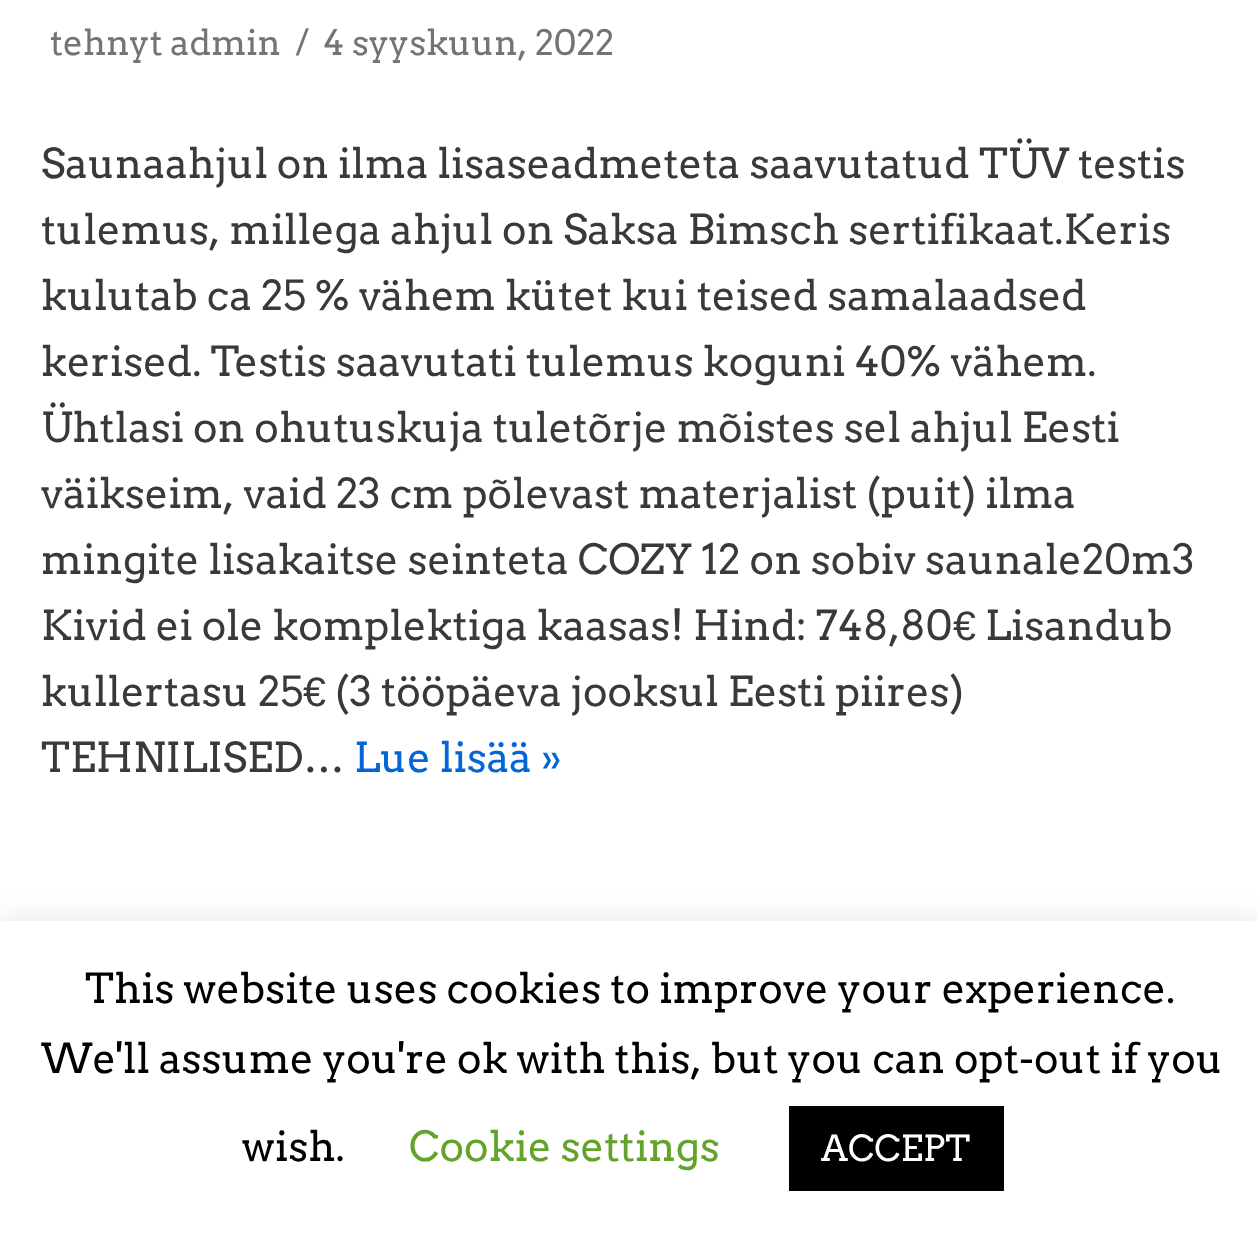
async function draw(canvas) {
  canvas.width = 1257;
  canvas.height = 1236;
  const ctx = canvas.getContext('2d');
  ctx.miterLimit = 4;
  ctx.fontKerning = 'normal';
  function label(s, x, y, font, color) {
    ctx.font = font;
    ctx.fillStyle = color;
    ctx.fillText(s, x, y);
  }
  function rect(x, y, w, h, color) {
    ctx.fillStyle = color;
    ctx.fillRect(x, y, w, h);
  }

  rect(0, 0, 1257, 1236, '#fff');
  label('tehnyt admin', 50, 55, '35px Arvo', '#747474');
  label('/', 295, 55, '35px Arvo', '#747474');
  label('4 syyskuun, 2022', 323, 55, '35px Arvo', '#747474');
  label('Saunaahjul on ilma lisaseadmeteta saavutatud TÜV testis', 41, 178, '41.25px Arvo', '#393939');
  label('tulemus, millega ahjul on Saksa Bimsch sertifikaat.Keris', 41, 244, '41.25px Arvo', '#393939');
  label('kulutab ca 25 % vähem kütet kui teised samalaadsed', 41, 310, '41.25px Arvo', '#393939');
  label('kerised. Testis saavutati tulemus koguni 40% vähem.', 41, 376, '41.25px Arvo', '#393939');
  label('Ühtlasi on ohutuskuja tuletõrje mõistes sel ahjul Eesti', 41, 442, '41.25px Arvo', '#393939');
  label('väikseim, vaid 23 cm põlevast materjalist (puit) ilma', 41, 508, '41.25px Arvo', '#393939');
  label('mingite lisakaitse seinteta COZY 12 on sobiv saunale20m3', 41, 574, '41.25px Arvo', '#393939');
  label('Kivid ei ole komplektiga kaasas! Hind: 748,80', 41, 640, '41.25px Arvo', '#393939');
  label('€', 953, 640, '41.25px Liberation Sans', '#393939');
  label('Lisandub', 985, 640, '41.25px Arvo', '#393939');
  label('kullertasu 25', 41, 706, '41.25px Arvo', '#393939');
  label('€', 303, 706, '41.25px Liberation Sans', '#393939');
  label('(3 tööpäeva jooksul Eesti piires)', 335, 706, '41.25px Arvo', '#393939');
  label('TEHNILISED…', 41, 772, '41.25px Arvo', '#393939');
  label('Lue lisää »', 354, 772, '41.25px Arvo', '#0366d6');
  ctx.fillStyle = '#acabab4d';
  ctx.filter = 'blur(14px)';
  ctx.beginPath();
  ctx.rect(0, 919, 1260, 316);
  ctx.fill();
  ctx.filter = 'none';
  rect(0, 921, 1257, 315, '#fff');
  label('This website uses cookies to improve your experience.', 85, 1003, '41.25px Arvo', '#000');
  label('We\'ll assume you\'re ok with this, but you can opt-out if you', 41, 1073, '41.25px Arvo', '#000');
  label('wish.', 242, 1161, '41.25px Arvo', '#000');
  label('Cookie settings', 409, 1161, '41.25px Arvo', '#62a329');
  rect(789, 1106, 215, 85, '#000');
  label('ACCEPT', 821, 1161, '35.75px Arvo', '#fff');
}

draw(document.querySelector('canvas'));
